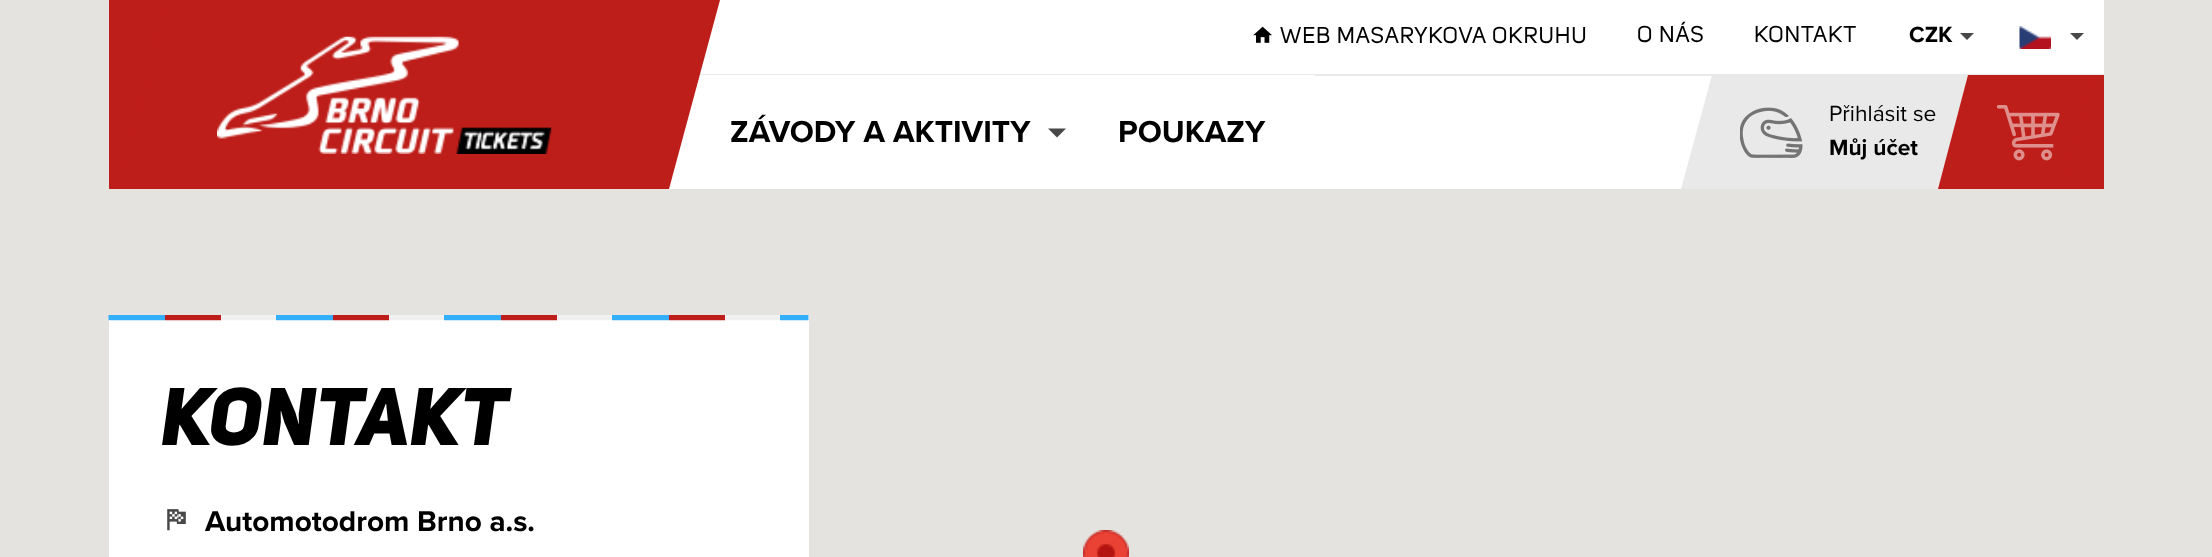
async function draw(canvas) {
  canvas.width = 2212;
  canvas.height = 557;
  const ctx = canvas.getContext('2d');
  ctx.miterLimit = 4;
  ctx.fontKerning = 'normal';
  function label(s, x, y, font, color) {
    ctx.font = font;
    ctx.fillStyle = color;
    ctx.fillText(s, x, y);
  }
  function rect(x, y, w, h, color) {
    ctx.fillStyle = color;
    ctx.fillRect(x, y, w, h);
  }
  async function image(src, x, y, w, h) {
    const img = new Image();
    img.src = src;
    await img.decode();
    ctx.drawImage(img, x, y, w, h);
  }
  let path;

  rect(0, 0, 2212, 557, '#e5e3df');
  rect(700, 0, 1404, 189, '#fff');
  rect(109, 0, 60, 189, '#be1e19');
  rect(699, 74, 1405, 2, '#e9e9e9');
  ctx.fillStyle = '#fff';
  path = new Path2D('M657 75H1098L1067 189H627Z');
  ctx.fill(path);
  ctx.fillStyle = '#be1e19';
  path = new Path2D('M169 0H720L669 189H118Z');
  ctx.fill(path);
  await image('assets/img1.png', 217, 36, 335, 118);
  await image('assets/img2.png', 1253, 26, 19, 17);
  ctx.letterSpacing = '0.9px';
  label('WEB MASARYKOVA OKRUHU', 1280, 43, '22.75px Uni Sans', '#000');
  label('O NÁS', 1637, 42, '22.75px Uni Sans', '#000');
  label('KONTAKT', 1754, 42, '22.75px Uni Sans', '#000');
  ctx.letterSpacing = '0px';
  label('CZK', 1909, 42, 'bold 22.75px Proxima Nova', '#000');
  ctx.fillStyle = '#484848';
  path = new Path2D('M1960 33H1974L1967 40Z');
  ctx.fill(path);
  await image('assets/img3.png', 2019, 26, 32, 23);
  path = new Path2D('M2070 33H2084L2077 40Z');
  ctx.fill(path);
  label('ZÁVODY A AKTIVITY', 730, 142, 'bold 31.5px Proxima Nova', '#000');
  ctx.fillStyle = '#484848';
  path = new Path2D('M1048 128.5H1066L1057 137.5Z');
  ctx.fill(path);
  ctx.fillStyle = '#fff';
  path = new Path2D('M1098 75H1315L1285 189H1067Z');
  ctx.fill(path);
  label('POUKAZY', 1118, 142, 'bold 31.5px Proxima Nova', '#000');
  rect(1930, 76, 38, 113, '#e9e9e9');
  path = new Path2D('M1712 75H1961L1930 189H1681Z');
  ctx.fill(path);
  await image('assets/img4.png', 1740, 107, 63, 51);
  label('Přihlásit se', 1829, 121, '22.75px Proxima Nova', '#000');
  label('Můj účet', 1829, 155, 'bold 22.75px Proxima Nova', '#000');
  rect(2062, 75, 42, 114, '#be1e19');
  path = new Path2D('M1968 75H2092L2062 189H1938Z');
  ctx.fill(path);
  await image('assets/img5.png', 1997, 105, 63, 56);
  await image('assets/img6.png', 1083, 530, 46, 27);
  rect(109, 315, 700, 242, '#fff');
  await image('assets/img7.png', 108, 315, 701, 6);
  label('KONTAKT', 161, 445, 'italic 900 80.5px Uni Sans', '#000');
  await image('assets/img8.png', 167, 509, 19, 22);
  label('Automotodrom Brno a.s.', 205, 531, 'bold 29.75px Proxima Nova', '#000');
}

draw(document.querySelector('canvas'));
